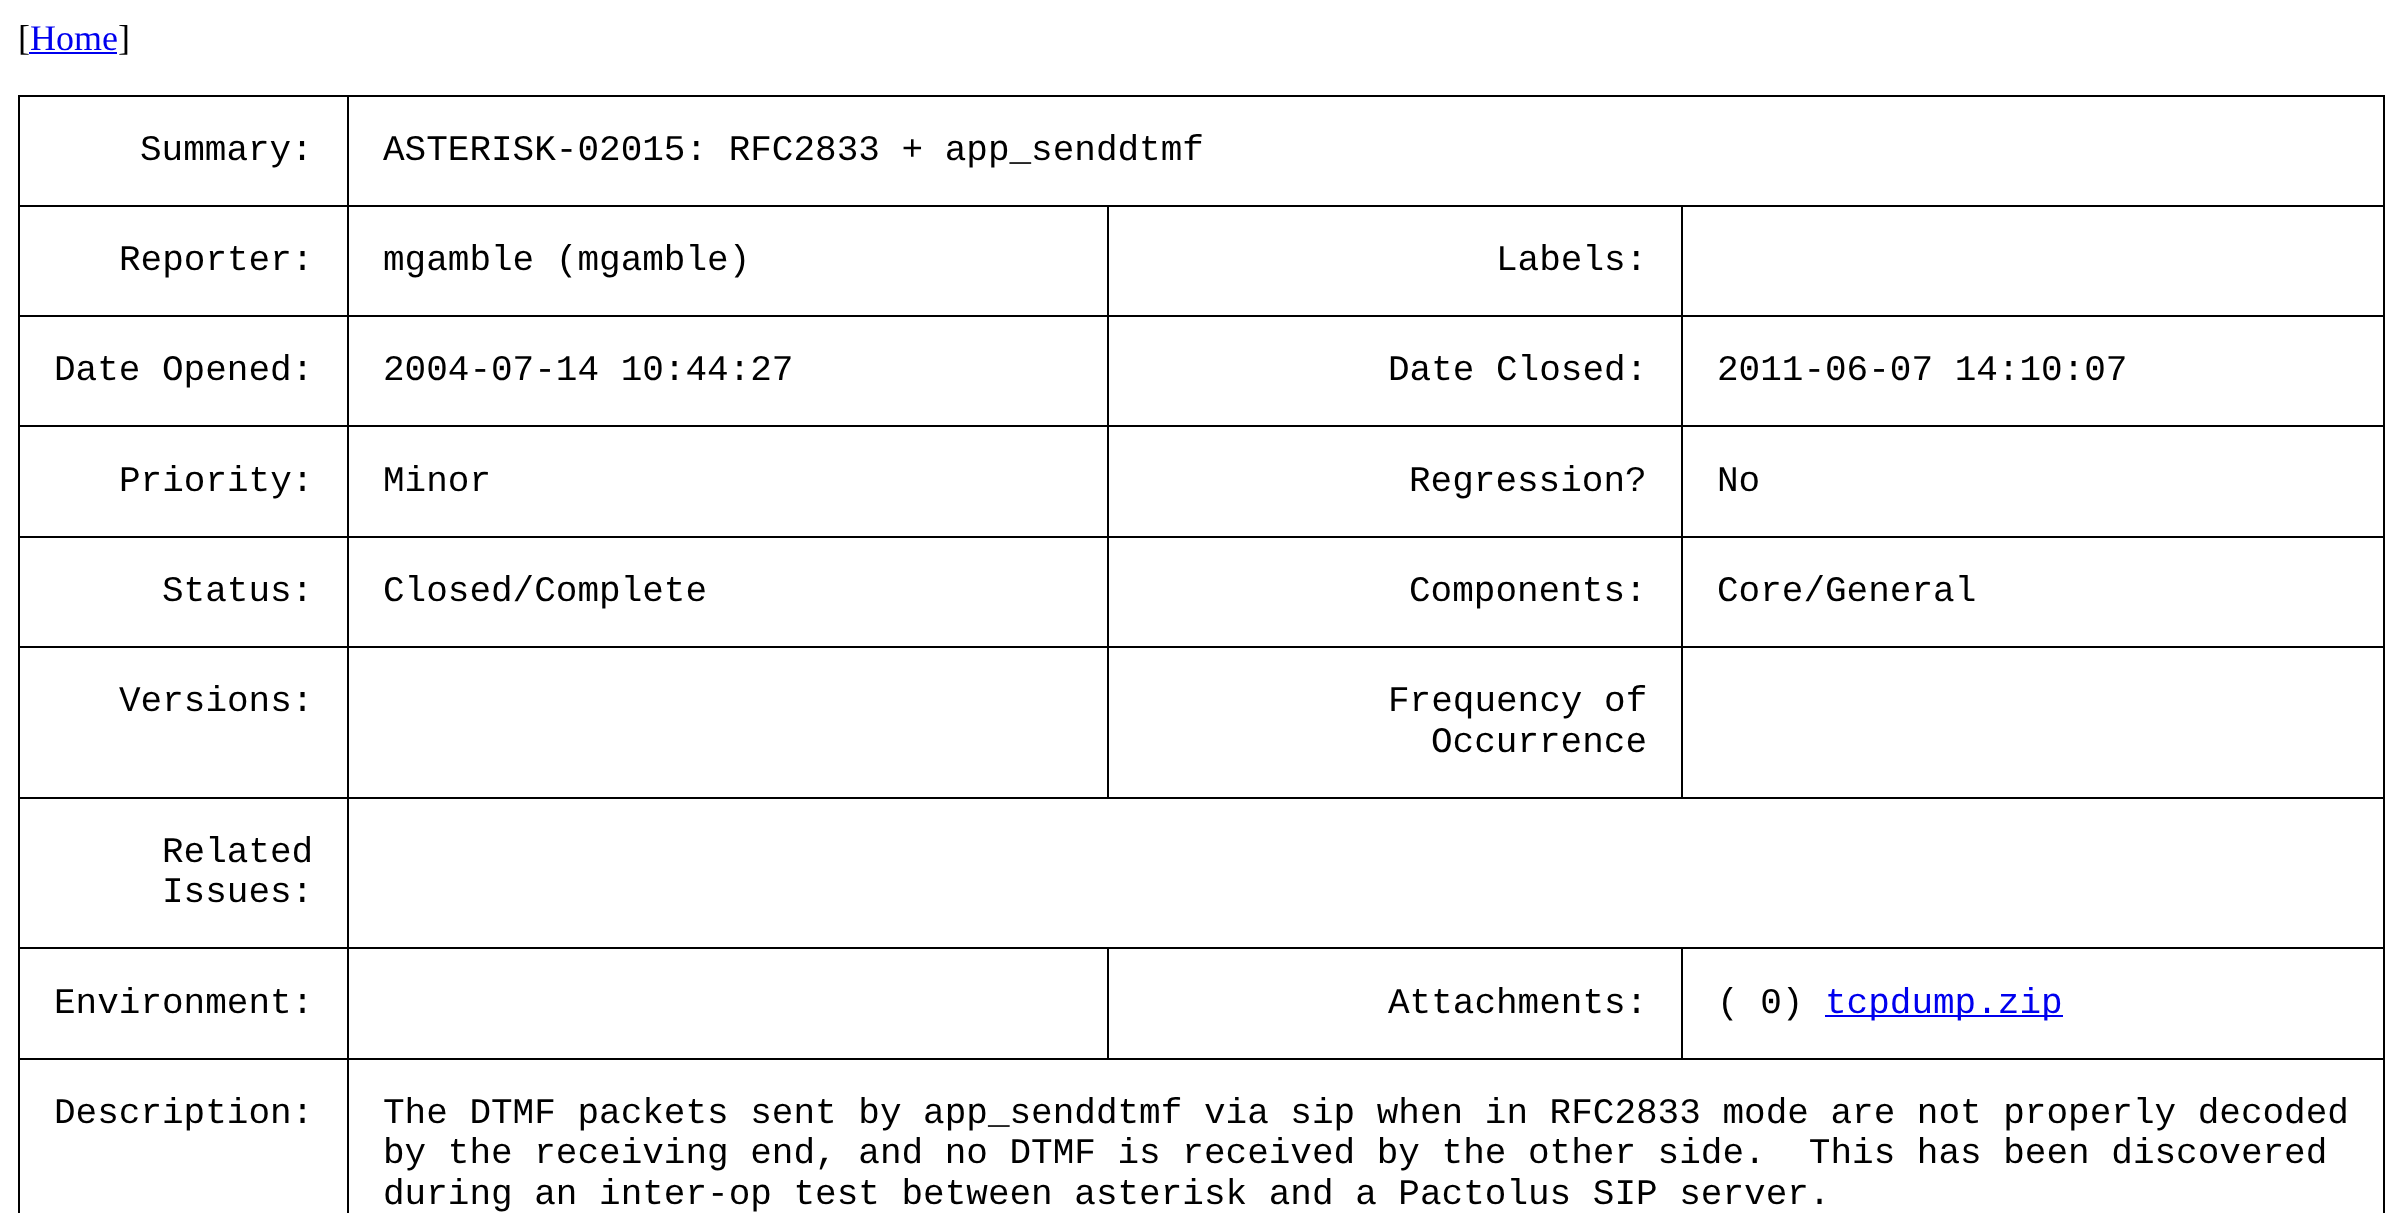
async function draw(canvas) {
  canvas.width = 2402;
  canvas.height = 1213;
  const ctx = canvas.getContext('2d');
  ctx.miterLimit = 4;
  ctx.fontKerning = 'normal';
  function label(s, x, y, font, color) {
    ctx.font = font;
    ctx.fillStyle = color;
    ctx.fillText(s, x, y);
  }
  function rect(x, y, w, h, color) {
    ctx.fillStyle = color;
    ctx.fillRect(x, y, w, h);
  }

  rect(0, 0, 2402, 1213, '#fff');
  label('[', 18, 50, '36px Liberation Serif', '#000');
  label('Home', 30, 50, '36px Liberation Serif', '#00e');
  rect(29, 52, 88, 2, '#00e');
  label(']', 118, 50, '36px Liberation Serif', '#000');
  rect(347, 95, 2038, 2, '#000');
  rect(1681, 205, 704, 2, '#000');
  rect(1681, 315, 704, 2, '#000');
  rect(1681, 425, 704, 2, '#000');
  rect(1681, 536, 704, 2, '#000');
  rect(1681, 646, 704, 2, '#000');
  rect(347, 797, 2038, 2, '#000');
  rect(1681, 646, 2, 153, '#000');
  rect(1107, 646, 576, 2, '#000');
  rect(1681, 536, 2, 112, '#000');
  rect(1107, 536, 576, 2, '#000');
  rect(1681, 425, 2, 113, '#000');
  rect(1107, 425, 576, 2, '#000');
  rect(1681, 315, 2, 113, '#000');
  rect(1107, 315, 576, 2, '#000');
  rect(1681, 205, 2, 112, '#000');
  rect(1107, 205, 576, 2, '#000');
  rect(1107, 646, 2, 153, '#000');
  rect(347, 646, 762, 2, '#000');
  rect(1107, 536, 2, 112, '#000');
  rect(347, 536, 762, 2, '#000');
  rect(1107, 425, 2, 113, '#000');
  rect(347, 425, 762, 2, '#000');
  rect(1107, 315, 2, 113, '#000');
  rect(347, 315, 762, 2, '#000');
  rect(1107, 205, 2, 112, '#000');
  rect(347, 205, 762, 2, '#000');
  rect(1681, 947, 704, 2, '#000');
  rect(347, 1058, 2038, 2, '#000');
  rect(1681, 947, 2, 113, '#000');
  rect(1107, 947, 576, 2, '#000');
  rect(1107, 947, 2, 113, '#000');
  rect(347, 947, 762, 2, '#000');
  rect(347, 1058, 2, 155, '#000');
  rect(18, 1058, 331, 2, '#000');
  rect(347, 947, 2, 113, '#000');
  rect(18, 947, 331, 2, '#000');
  rect(347, 797, 2, 153, '#000');
  rect(18, 797, 331, 2, '#000');
  rect(347, 646, 2, 153, '#000');
  rect(18, 646, 331, 2, '#000');
  rect(347, 536, 2, 112, '#000');
  rect(18, 536, 331, 2, '#000');
  rect(347, 425, 2, 113, '#000');
  rect(18, 425, 331, 2, '#000');
  rect(347, 315, 2, 113, '#000');
  rect(18, 315, 331, 2, '#000');
  rect(347, 205, 2, 112, '#000');
  rect(18, 205, 331, 2, '#000');
  rect(347, 95, 2, 112, '#000');
  rect(18, 95, 331, 2, '#000');
  rect(18, 1058, 2, 155, '#000');
  rect(18, 947, 2, 113, '#000');
  rect(18, 797, 2, 153, '#000');
  rect(18, 646, 2, 153, '#000');
  rect(18, 536, 2, 112, '#000');
  rect(18, 425, 2, 113, '#000');
  rect(18, 315, 2, 113, '#000');
  rect(18, 205, 2, 112, '#000');
  rect(18, 95, 2, 112, '#000');
  label('Summary:', 140, 160, '36px Liberation Mono', '#000');
  rect(2383, 1058, 2, 155, '#000');
  rect(2383, 947, 2, 113, '#000');
  rect(2383, 797, 2, 153, '#000');
  rect(2383, 646, 2, 153, '#000');
  rect(2383, 536, 2, 112, '#000');
  rect(2383, 425, 2, 113, '#000');
  rect(2383, 315, 2, 113, '#000');
  rect(2383, 205, 2, 112, '#000');
  rect(2383, 95, 2, 112, '#000');
  label('ASTERISK-02015: RFC2833 + app_senddtmf', 383, 160, '36px Liberation Mono', '#000');
  label('Reporter:', 119, 270, '36px Liberation Mono', '#000');
  label('mgamble (mgamble)', 383, 270, '36px Liberation Mono', '#000');
  label('Labels:', 1496, 270, '36px Liberation Mono', '#000');
  label('Date Opened:', 54, 380, '36px Liberation Mono', '#000');
  label('2004-07-14 10:44:27', 383, 380, '36px Liberation Mono', '#000');
  label('Date Closed:', 1388, 380, '36px Liberation Mono', '#000');
  label('2011-06-07 14:10:07', 1717, 380, '36px Liberation Mono', '#000');
  label('Priority:', 119, 491, '36px Liberation Mono', '#000');
  label('Minor', 383, 491, '36px Liberation Mono', '#000');
  label('Regression?', 1409, 491, '36px Liberation Mono', '#000');
  label('No', 1717, 491, '36px Liberation Mono', '#000');
  label('Status:', 162, 601, '36px Liberation Mono', '#000');
  label('Closed/Complete', 383, 601, '36px Liberation Mono', '#000');
  label('Components:', 1409, 601, '36px Liberation Mono', '#000');
  label('Core/General', 1717, 601, '36px Liberation Mono', '#000');
  label('Versions:', 119, 711, '36px Liberation Mono', '#000');
  label('Frequency of', 1388, 711, '36px Liberation Mono', '#000');
  label('Occurrence', 1431, 752, '36px Liberation Mono', '#000');
  label('Related', 162, 862, '36px Liberation Mono', '#000');
  label('Issues:', 162, 902, '36px Liberation Mono', '#000');
  label('Environment:', 54, 1013, '36px Liberation Mono', '#000');
  label('Attachments:', 1388, 1013, '36px Liberation Mono', '#000');
  label('( 0)', 1717, 1013, '36px Liberation Mono', '#000');
  rect(1825, 1015, 238, 2, '#00e');
  label('tcpdump.zip', 1825, 1013, '36px Liberation Mono', '#00e');
  label('Description:', 54, 1123, '36px Liberation Mono', '#000');
  label('The DTMF packets sent by app_senddtmf via sip when in RFC2833 mode are not properly decoded', 383, 1123, '36px Liberation Mono', '#000');
  label('by the receiving end, and no DTMF is received by the other side.  This has been discovered', 383, 1163, '36px Liberation Mono', '#000');
  label('during an inter-op test between asterisk and a Pactolus SIP server.', 383, 1204, '36px Liberation Mono', '#000');
}

draw(document.querySelector('canvas'));
